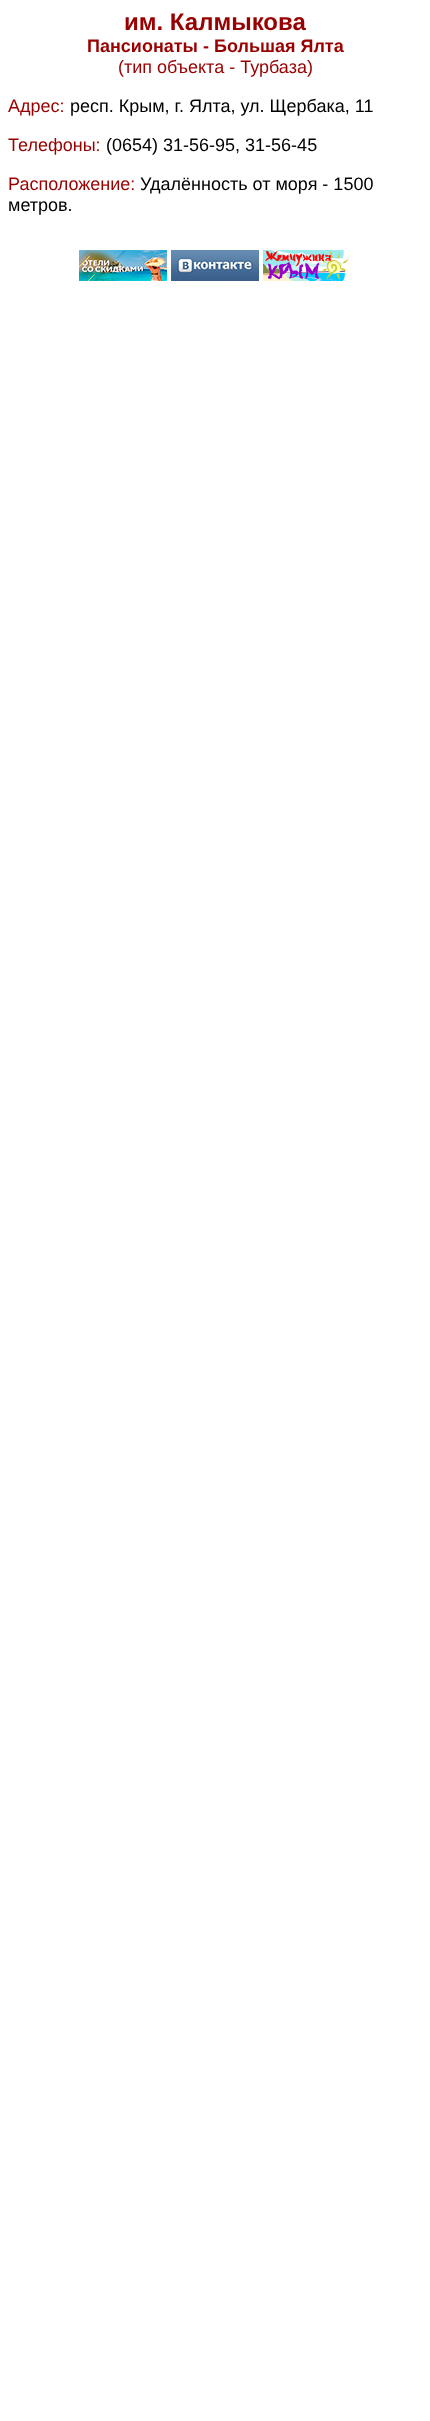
async function draw(canvas) {
  canvas.width = 430;
  canvas.height = 2421;
  const ctx = canvas.getContext('2d');
  ctx.miterLimit = 4;
  ctx.fontKerning = 'normal';
  function label(s, x, y, font, color) {
    ctx.font = font;
    ctx.fillStyle = color;
    ctx.fillText(s, x, y);
  }
  function rect(x, y, w, h, color) {
    ctx.fillStyle = color;
    ctx.fillRect(x, y, w, h);
  }
  async function image(src, x, y, w, h) {
    const img = new Image();
    img.src = src;
    await img.decode();
    ctx.drawImage(img, x, y, w, h);
  }

  rect(0, 0, 430, 2421, '#fff');
  label('им. Калмыкова', 124, 30, 'bold 24px Liberation Sans', '#900');
  label('Пансионаты - Большая Ялта', 87, 52, 'bold 18px Liberation Sans', '#900');
  label('(тип объекта - Турбаза)', 118, 73, '18px Liberation Sans', '#900');
  label('Адрес:', 8, 112, '18px Liberation Sans', '#900');
  label('респ. Крым, г. Ялта, ул. Щербака, 11', 70, 112, '18px Liberation Sans', '#000');
  label('Телефоны:', 8, 151, '18px Liberation Sans', '#900');
  label('(0654) 31-56-95, 31-56-45', 106, 151, '18px Liberation Sans', '#000');
  label('Расположение:', 8, 190, '18px Liberation Sans', '#900');
  label('Удалённость от моря - 1500', 140, 190, '18px Liberation Sans', '#000');
  label('метров.', 8, 211, '18px Liberation Sans', '#000');
  await image('assets/img1.png', 79, 250, 88, 31);
  await image('assets/img2.png', 171, 250, 88, 31);
  await image('assets/img3.png', 263, 250, 86, 31);
}

draw(document.querySelector('canvas'));
